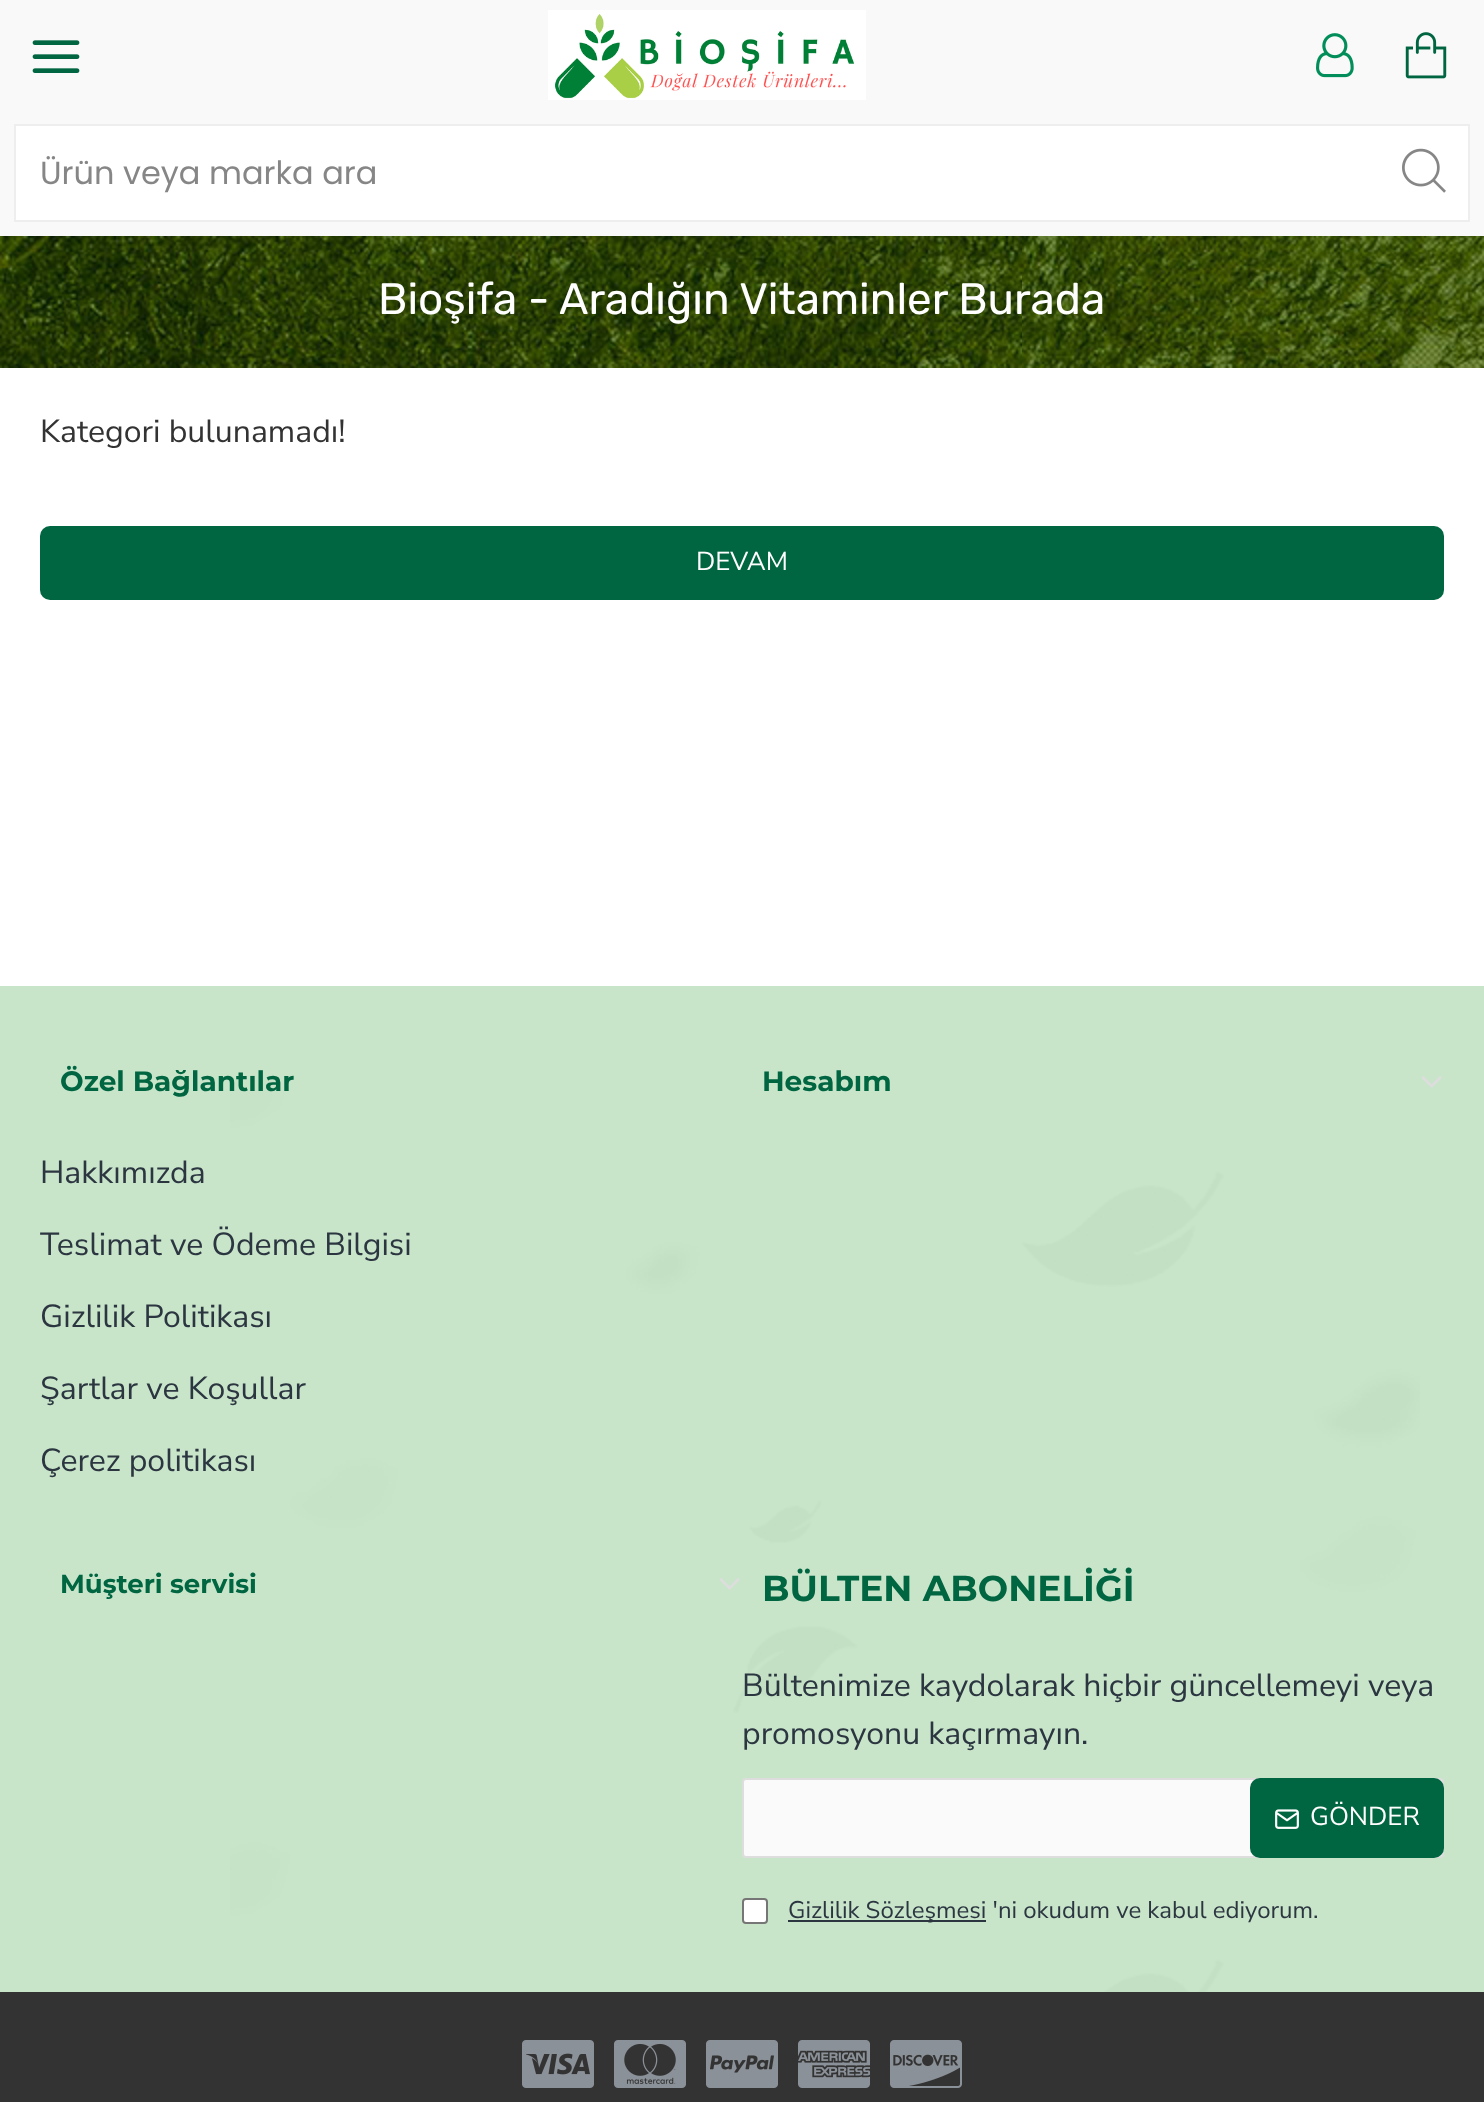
async function draw(canvas) {
  canvas.width = 1484;
  canvas.height = 2102;
  const ctx = canvas.getContext('2d');
  ctx.miterLimit = 4;
  ctx.fontKerning = 'normal';
  function label(s, x, y, font, color) {
    ctx.font = font;
    ctx.fillStyle = color;
    ctx.fillText(s, x, y);
  }
  function rect(x, y, w, h, color) {
    ctx.fillStyle = color;
    ctx.fillRect(x, y, w, h);
  }
  function roundedRect(x, y, w, h, r, color) {
    ctx.fillStyle = color;
    ctx.beginPath();
    ctx.roundRect(x, y, w, h, r);
    ctx.fill();
  }
  async function image(src, x, y, w, h) {
    const img = new Image();
    img.src = src;
    await img.decode();
    ctx.drawImage(img, x, y, w, h);
  }

  rect(0, 0, 1484, 2102, '#fff');
  rect(0, 986, 1484, 1006, '#c8e5ca');
  rect(0, 0, 1484, 236, '#f9f9f9');
  await image('assets/img1.png', 32, 40, 48, 33);
  await image('assets/img2.png', 548, 10, 318, 90);
  await image('assets/img3.png', 1316, 33, 38, 45);
  await image('assets/img4.png', 1405, 32, 42, 47);
  ctx.strokeStyle = '#eee';
  ctx.lineWidth = 2;
  ctx.strokeRect(15, 125, 1454, 96);
  rect(16, 126, 1452, 94, '#fff');
  await image('assets/img5.png', 1402, 148, 44, 45);
  label('Ürün veya marka ara', 40, 184, '32px Poppins', '#868686');
  await image('assets/img6.png', 0, 236, 1484, 132);
  label('Bioşifa - Aradığın Vitaminler Burada', 378, 314, '44px Rubik', '#fff');
  label('Kategori bulunamadı!', 40, 442, '32px Nunito Sans', '#333');
  roundedRect(40, 526, 1404, 74, 10, '#006541');
  label('DEVAM', 696, 570, '26px Nunito Sans', '#fff');
  await image('assets/img7.png', 230, 1080, 1190, 912);
  label('Özel Bağlantılar', 60, 1091, 'bold 28px Montserrat', '#006541');
  label('Hakkımızda', 40, 1183, '32px Nunito Sans', '#2c3640');
  label('Teslimat ve Ödeme Bilgisi', 40, 1255, '32px Nunito Sans', '#2c3640');
  label('Gizlilik Politikası', 40, 1327, '32px Nunito Sans', '#2c3640');
  label('Şartlar ve Koşullar', 40, 1399, '32px Nunito Sans', '#2c3640');
  label('Çerez politikası', 40, 1471, '32px Nunito Sans', '#2c3640');
  label('Hesabım', 762, 1091, 'bold 28px Montserrat', '#006541');
  await image('assets/img8.png', 1421, 1076, 21, 12);
  label('Müşteri servisi', 60, 1593, 'bold 26px Montserrat', '#006541');
  await image('assets/img8.png', 719, 1578, 21, 12);
  label('BÜLTEN ABONELİĞİ', 762, 1601, 'bold 36px Montserrat', '#006541');
  label('Bültenimize kaydolarak hiçbir güncellemeyi veya', 742, 1696, '32px Nunito Sans', '#2c3640');
  label('promosyonu kaçırmayın.', 742, 1744, '32px Nunito Sans', '#2c3640');
  ctx.fillStyle = '#fafafa';
  ctx.beginPath();
  ctx.roundRect(743, 1779, 700, 78, 3);
  ctx.fill();
  ctx.strokeStyle = '#ddd';
  ctx.stroke();
  roundedRect(1250, 1778, 194, 80, 10, '#006541');
  await image('assets/img9.png', 1275, 1809, 24, 20);
  label('GÖNDER', 1310, 1825, '26px Nunito Sans', '#fff');
  ctx.beginPath();
  ctx.roundRect(743, 1899, 24, 24, 3);
  ctx.fill();
  ctx.strokeStyle = '#767676';
  ctx.stroke();
  rect(788, 1920, 198, 2, '#2c3640');
  label('Gizlilik Sözleşmesi \'ni okudum ve kabul ediyorum.', 788, 1918, '24px Nunito Sans', '#2c3640');
  rect(0, 1992, 1484, 110, '#333');
  await image('assets/img10.png', 522, 2040, 72, 48);
  await image('assets/img11.png', 614, 2040, 72, 48);
  await image('assets/img12.png', 706, 2040, 72, 48);
  await image('assets/img13.png', 798, 2040, 72, 48);
  await image('assets/img14.png', 890, 2040, 72, 48);
}

draw(document.querySelector('canvas'));
